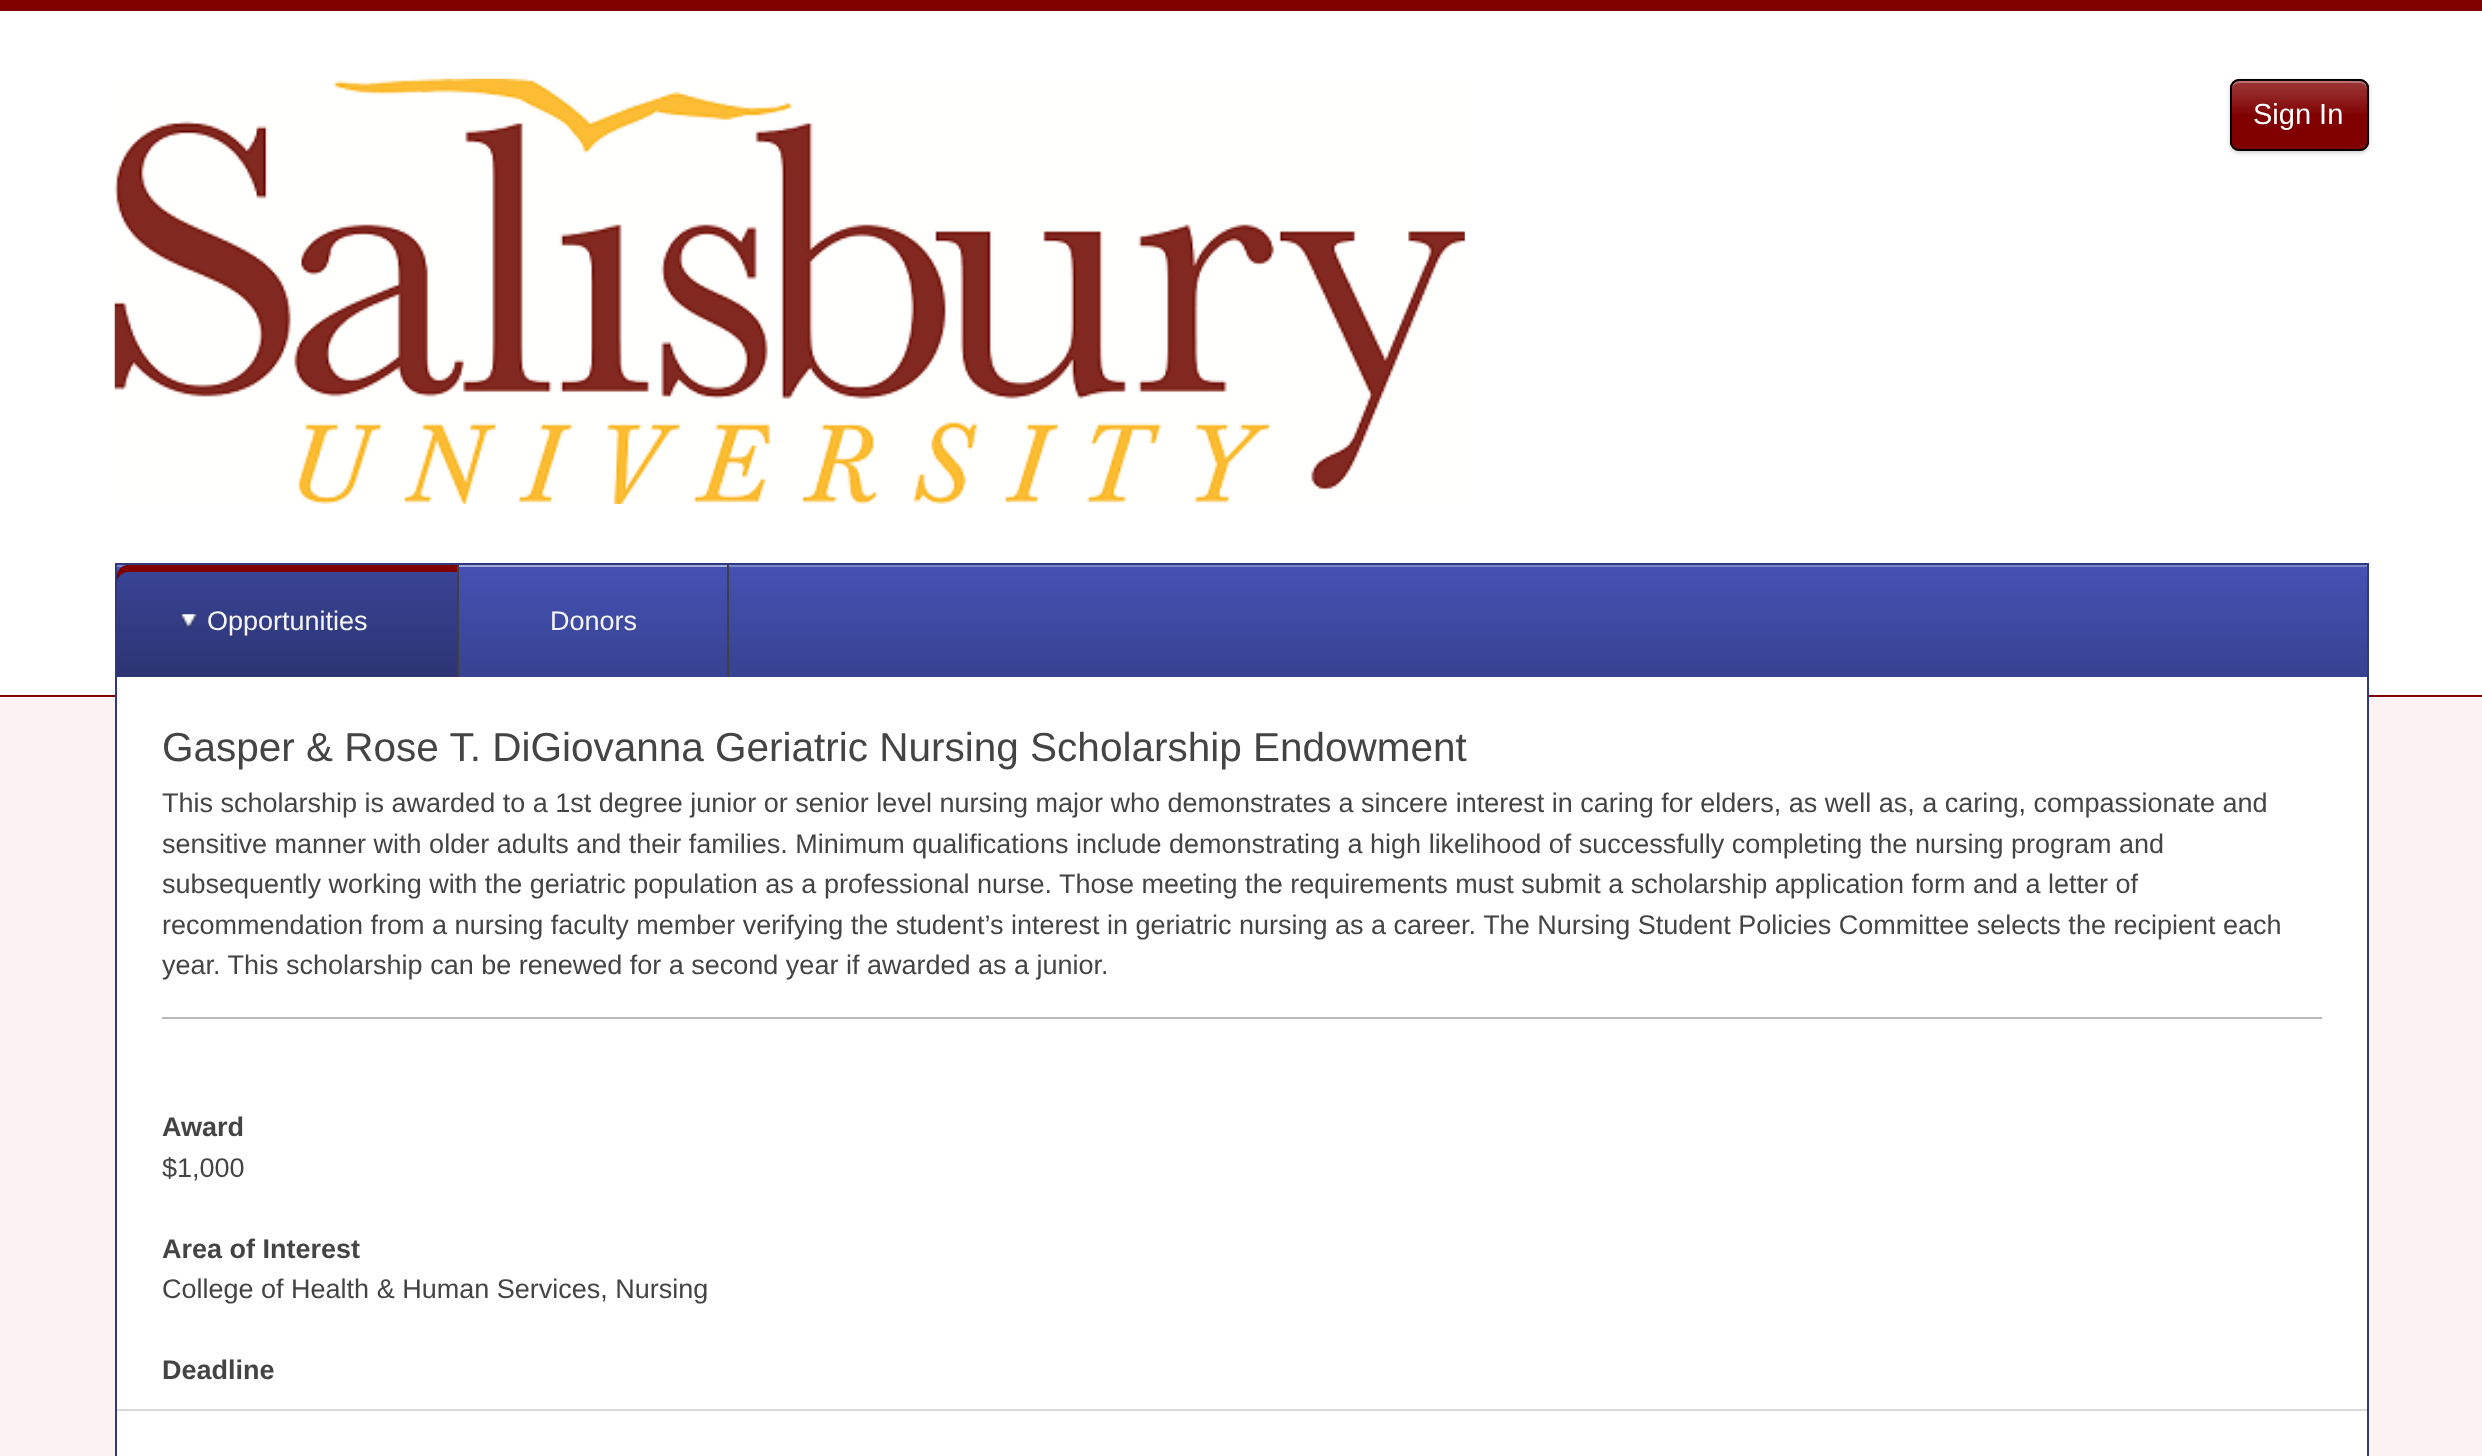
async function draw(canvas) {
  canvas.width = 2482;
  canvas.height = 1456;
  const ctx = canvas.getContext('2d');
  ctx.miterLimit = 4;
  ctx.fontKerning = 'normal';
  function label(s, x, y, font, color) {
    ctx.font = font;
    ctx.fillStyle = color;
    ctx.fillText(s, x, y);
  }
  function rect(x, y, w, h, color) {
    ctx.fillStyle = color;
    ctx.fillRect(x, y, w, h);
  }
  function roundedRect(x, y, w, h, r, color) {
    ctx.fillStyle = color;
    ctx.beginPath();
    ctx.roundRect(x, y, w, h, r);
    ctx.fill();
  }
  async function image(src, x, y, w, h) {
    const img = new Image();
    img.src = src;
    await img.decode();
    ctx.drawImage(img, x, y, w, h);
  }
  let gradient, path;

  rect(0, 0, 2482, 1456, '#fbf3f3');
  rect(0, 11, 2482, 687, '#fff');
  rect(0, 0, 2482, 11, '#800000');
  rect(0, 695, 2482, 2, '#800000');
  await image('assets/img1.png', 114, 78, 1351, 426);
  ctx.fillStyle = '#00000033';
  ctx.filter = 'blur(2px)';
  ctx.beginPath();
  ctx.roundRect(2230, 81, 139, 72, 9);
  ctx.fill();
  ctx.filter = 'none';
  roundedRect(2230, 79, 139, 72, 9, '#800000');
  await image('assets/img2.png', 2230, 81, 139, 33);
  ctx.fillStyle = '#ffffff4d';
  path = new Path2D('M2239 83H2360C2364 83 2367 86 2367 90V88C2367 84 2364 81 2360 81H2239C2235 81 2232 84 2232 88V90C2232 86 2235 83 2239 83Z');
  ctx.fill(path);
  ctx.beginPath();
  ctx.roundRect(2231, 80, 137, 70, 8);
  ctx.strokeStyle = '#000';
  ctx.lineWidth = 2;
  ctx.stroke();
  label('Sign In', 2253, 124, '29px Liberation Sans', '#fff');
  gradient = ctx.createLinearGradient(1242, 565, 1242, 677);
  gradient.addColorStop(0, '#4552b4');
  gradient.addColorStop(1, '#374290');
  ctx.fillStyle = gradient;
  ctx.fillRect(117, 567, 2250, 110);
  rect(117, 565, 2250, 2, '#7d86cb');
  rect(115, 563, 2254, 2, '#30397d');
  rect(2367, 563, 2, 114, '#30397d');
  rect(115, 563, 2, 114, '#30397d');
  gradient = ctx.createLinearGradient(287, 565, 287, 677);
  gradient.addColorStop(0, '#3a4597');
  gradient.addColorStop(1, '#2c3472');
  ctx.fillStyle = gradient;
  ctx.beginPath();
  ctx.roundRect(117, 565, 342, 112, [11, 0, 0, 0]);
  ctx.fill();
  ctx.fillStyle = '#800000';
  path = new Path2D('M128 572H457V565H128C122 565 117 570 117 576V583C117 577 122 572 128 572Z');
  ctx.fill(path);
  rect(457, 565, 2, 112, '#404040');
  await image('assets/img3.png', 180, 614, 18, 16);
  label('Opportunities', 207, 630, '27px Liberation Sans', '#f5f5f5');
  rect(459, 565, 268, 2, '#a4aadb');
  rect(727, 565, 2, 112, '#404040');
  label('Donors', 550, 630, '27px Liberation Sans', '#f5f5f5');
  roundedRect(115, 677, 2254, 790, 11, '#fff');
  ctx.fillStyle = '#30397d';
  path = new Path2D('M115 677H2369V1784C2369 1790 2364 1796 2358 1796H126C120 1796 115 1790 115 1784ZM117 677H2367V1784C2367 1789 2363 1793 2358 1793H126C121 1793 117 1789 117 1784Z');
  ctx.fill(path, 'evenodd');
  rect(162, 1017, 2160, 2, '#b9b9b9');
  label('Gasper & Rose T. DiGiovanna Geriatric Nursing Scholarship Endowment', 162, 761, '40.5px Liberation Sans', '#444');
  label('This scholarship is awarded to a 1st degree junior or senior level nursing major who demonstrates a sincere interest in caring for elders, as well as, a caring, compassionate and', 162, 812, '27px Liberation Sans', '#444');
  label('sensitive manner with older adults and their families. Minimum qualifications include demonstrating a high likelihood of successfully completing the nursing program and', 162, 853, '27px Liberation Sans', '#444');
  label('subsequently working with the geriatric population as a professional nurse. Those meeting the requirements must submit a scholarship application form and a letter of', 162, 893, '27px Liberation Sans', '#444');
  label('recommendation from a nursing faculty member verifying the student’s interest in geriatric nursing as a career. The Nursing Student Policies Committee selects the recipient each', 162, 934, '27px Liberation Sans', '#444');
  label('year. This scholarship can be renewed for a second year if awarded as a junior.', 162, 974, '27px Liberation Sans', '#444');
  label('Award', 162, 1136, 'bold 27px Liberation Sans', '#444');
  label('$1,000', 162, 1177, '27px Liberation Sans', '#444');
  label('Area of Interest', 162, 1258, 'bold 27px Liberation Sans', '#444');
  label('College of Health & Human Services, Nursing', 162, 1298, '27px Liberation Sans', '#444');
  label('Deadline', 162, 1379, 'bold 27px Liberation Sans', '#444');
  rect(117, 1409, 2250, 2, '#d9d9d9');
}

draw(document.querySelector('canvas'));
